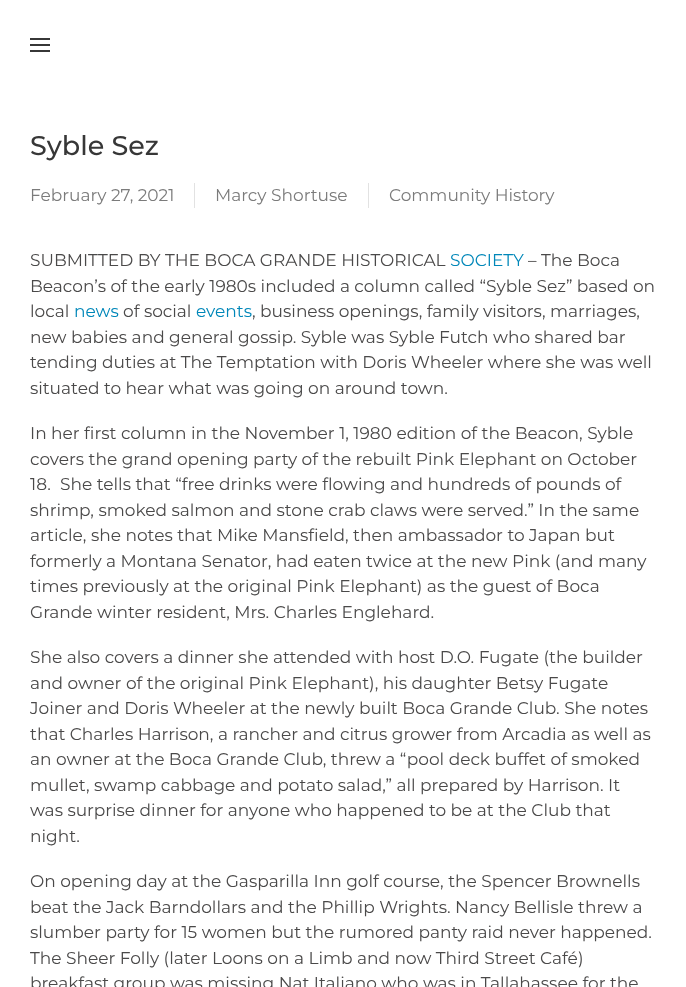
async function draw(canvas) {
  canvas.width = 686;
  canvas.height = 987;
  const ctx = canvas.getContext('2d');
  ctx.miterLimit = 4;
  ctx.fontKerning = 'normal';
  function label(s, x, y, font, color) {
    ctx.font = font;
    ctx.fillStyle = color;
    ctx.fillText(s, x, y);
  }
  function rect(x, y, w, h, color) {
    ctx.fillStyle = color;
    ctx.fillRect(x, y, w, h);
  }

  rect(0, 0, 686, 987, '#fff');
  rect(30, 38, 20, 2, '#373737');
  rect(30, 44, 20, 2, '#373737');
  rect(30, 50, 20, 2, '#373737');
  label('Syble Sez', 30, 155, '100 27px Montserrat', '#373737');
  label('February 27, 2021', 30, 201, '100 17px "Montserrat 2"', '#7b7b7b');
  rect(194, 183, 1, 25, '#e2e2e2');
  label('Marcy Shortuse', 215, 201, '100 17px "Montserrat 2"', '#7b7b7b');
  rect(368, 183, 1, 25, '#e2e2e2');
  label('Community History', 389, 201, '100 17px "Montserrat 2"', '#7b7b7b');
  label('SUBMITTED BY THE BOCA GRANDE HISTORICAL', 30, 266, '100 17px "Montserrat 2"', '#4a4949');
  label('SOCIETY', 450, 266, '100 17px "Montserrat 2"', '#0087b9');
  label('– The Boca', 528, 266, '100 17px "Montserrat 2"', '#4a4949');
  label('Beacon’s of the early 1980s included a column called “Syble Sez” based on', 30, 292, '100 17px "Montserrat 2"', '#4a4949');
  label('local', 30, 317, '100 17px "Montserrat 2"', '#4a4949');
  label('news', 74, 317, '100 17px "Montserrat 2"', '#0087b9');
  label('of social', 123, 317, '100 17px "Montserrat 2"', '#4a4949');
  label('events', 196, 317, '100 17px "Montserrat 2"', '#0087b9');
  label(', business openings, family visitors, marriages,', 252, 317, '100 17px "Montserrat 2"', '#4a4949');
  label('new babies and general gossip. Syble was Syble Futch who shared bar', 30, 343, '100 17px "Montserrat 2"', '#4a4949');
  label('tending duties at The Temptation with Doris Wheeler where she was well', 30, 368, '100 17px "Montserrat 2"', '#4a4949');
  label('situated to hear what was going on around town.', 30, 394, '100 17px "Montserrat 2"', '#4a4949');
  label('In her first column in the November 1, 1980 edition of the Beacon, Syble', 30, 439, '100 17px "Montserrat 2"', '#4a4949');
  label('covers the grand opening party of the rebuilt Pink Elephant on October', 30, 465, '100 17px "Montserrat 2"', '#4a4949');
  label('18.', 30, 490, '100 17px "Montserrat 2"', '#4a4949');
  label('She tells that “free drinks were flowing and hundreds of pounds of', 60, 490, '100 17px "Montserrat 2"', '#4a4949');
  label('shrimp, smoked salmon and stone crab claws were served.” In the same', 30, 516, '100 17px "Montserrat 2"', '#4a4949');
  label('article, she notes that Mike Mansfield, then ambassador to Japan but', 30, 541, '100 17px "Montserrat 2"', '#4a4949');
  label('formerly a Montana Senator, had eaten twice at the new Pink (and many', 30, 567, '100 17px "Montserrat 2"', '#4a4949');
  label('times previously at the original Pink Elephant) as the guest of Boca', 30, 592, '100 17px "Montserrat 2"', '#4a4949');
  label('Grande winter resident, Mrs. Charles Englehard.', 30, 618, '100 17px "Montserrat 2"', '#4a4949');
  label('She also covers a dinner she attended with host D.O. Fugate (the builder', 30, 663, '100 17px "Montserrat 2"', '#4a4949');
  label('and owner of the original Pink Elephant), his daughter Betsy Fugate', 30, 689, '100 17px "Montserrat 2"', '#4a4949');
  label('Joiner and Doris Wheeler at the newly built Boca Grande Club. She notes', 30, 714, '100 17px "Montserrat 2"', '#4a4949');
  label('that Charles Harrison, a rancher and citrus grower from Arcadia as well as', 30, 740, '100 17px "Montserrat 2"', '#4a4949');
  label('an owner at the Boca Grande Club, threw a “pool deck buffet of smoked', 30, 765, '100 17px "Montserrat 2"', '#4a4949');
  label('mullet, swamp cabbage and potato salad,” all prepared by Harrison. It', 30, 791, '100 17px "Montserrat 2"', '#4a4949');
  label('was surprise dinner for anyone who happened to be at the Club that', 30, 816, '100 17px "Montserrat 2"', '#4a4949');
  label('night.', 30, 842, '100 17px "Montserrat 2"', '#4a4949');
  label('On opening day at the Gasparilla Inn golf course, the Spencer Brownells', 30, 887, '100 17px "Montserrat 2"', '#4a4949');
  label('beat the Jack Barndollars and the Phillip Wrights. Nancy Bellisle threw a', 30, 913, '100 17px "Montserrat 2"', '#4a4949');
  label('slumber party for 15 women but the rumored panty raid never happened.', 30, 938, '100 17px "Montserrat 2"', '#4a4949');
  label('The Sheer Folly (later Loons on a Limb and now Third Street Café)', 30, 964, '100 17px "Montserrat 2"', '#4a4949');
  label('breakfast group was missing Nat Italiano who was in Tallahassee for the', 30, 989, '100 17px "Montserrat 2"', '#4a4949');
}

draw(document.querySelector('canvas'));
